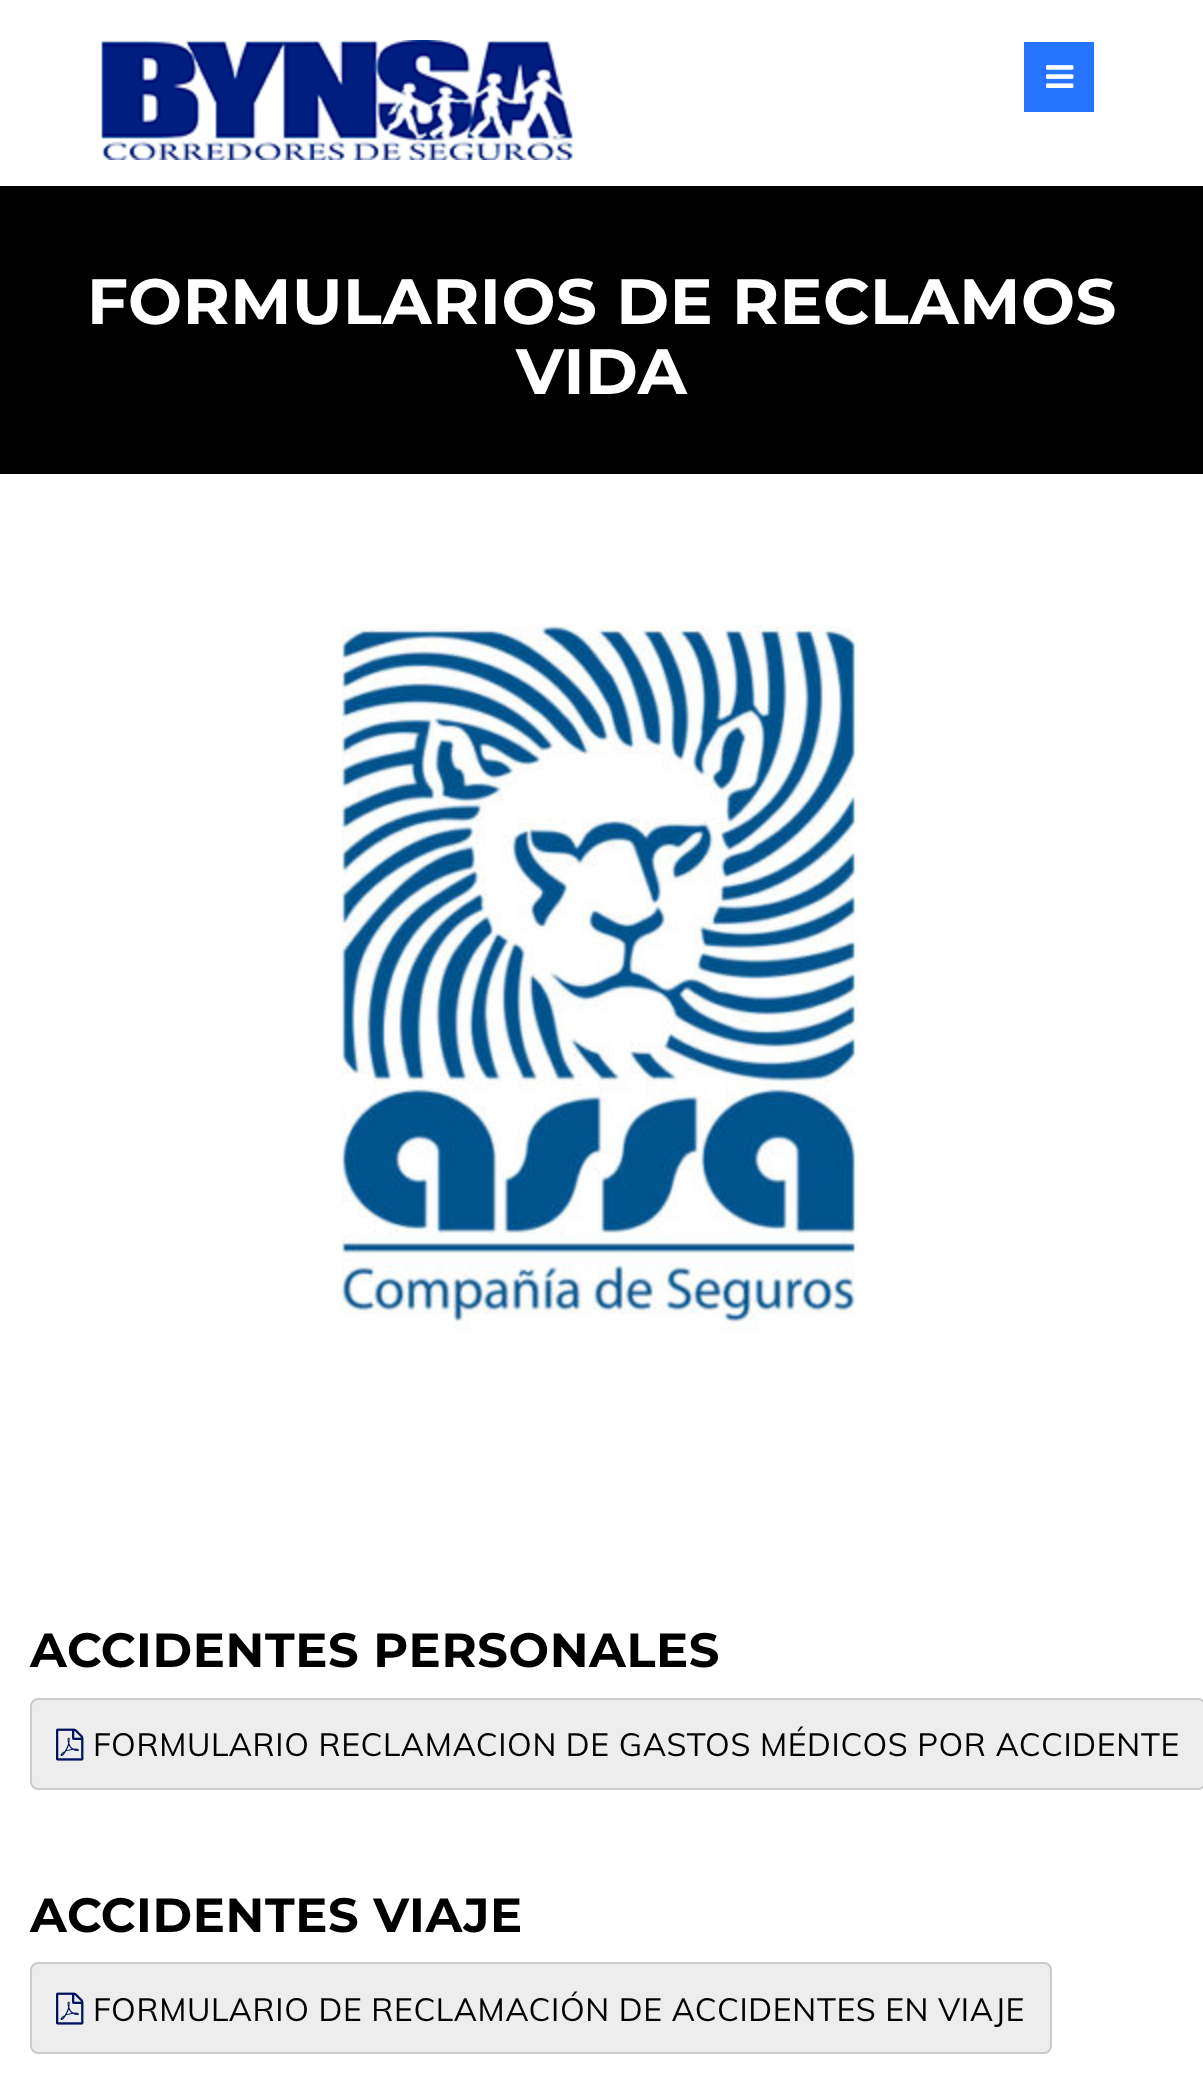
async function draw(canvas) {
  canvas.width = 1203;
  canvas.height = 2086;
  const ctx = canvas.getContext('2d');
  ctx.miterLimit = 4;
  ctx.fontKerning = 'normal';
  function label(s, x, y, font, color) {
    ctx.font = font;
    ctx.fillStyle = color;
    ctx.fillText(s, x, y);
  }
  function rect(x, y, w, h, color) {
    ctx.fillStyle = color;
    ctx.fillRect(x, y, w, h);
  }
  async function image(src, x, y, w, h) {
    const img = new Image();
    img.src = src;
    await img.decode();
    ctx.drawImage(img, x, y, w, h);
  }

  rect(0, 0, 1203, 2086, '#fff');
  await image('assets/img1.png', 101, 40, 473, 120);
  rect(1024, 42, 70, 70, '#2474ff');
  await image('assets/img2.png', 1046, 65, 28, 23);
  rect(0, 186, 1203, 288, '#000');
  ctx.letterSpacing = '0.6px';
  label('FORMULARIOS DE RECLAMOS', 87, 324, 'bold 64px Montserrat', '#fff');
  label('VIDA', 516, 394, 'bold 64px Montserrat', '#fff');
  await image('assets/img3.png', 341, 625, 517, 705);
  label('ACCIDENTES PERSONALES', 30, 1667, 'bold 48px Montserrat', '#000');
  ctx.fillStyle = '#ededed';
  ctx.beginPath();
  ctx.roundRect(31, 1699, 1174, 90, 7);
  ctx.fill();
  ctx.strokeStyle = '#ccc';
  ctx.lineWidth = 2;
  ctx.stroke();
  await image('assets/img4.png', 56, 1728, 28, 33);
  label('FORMULARIO RECLAMACION DE GASTOS MÉDICOS POR ACCIDENTE', 93, 1756, '32px Muli', '#000');
  label('ACCIDENTES VIAJE', 30, 1932, 'bold 48px Montserrat', '#000');
  ctx.fillStyle = '#ededed';
  ctx.beginPath();
  ctx.roundRect(31, 1963, 1020, 90, 7);
  ctx.fill();
  ctx.stroke();
  await image('assets/img4.png', 56, 1992, 28, 33);
  label('FORMULARIO DE RECLAMACIÓN DE ACCIDENTES EN VIAJE', 93, 2021, '32px Muli', '#000');
}

draw(document.querySelector('canvas'));
